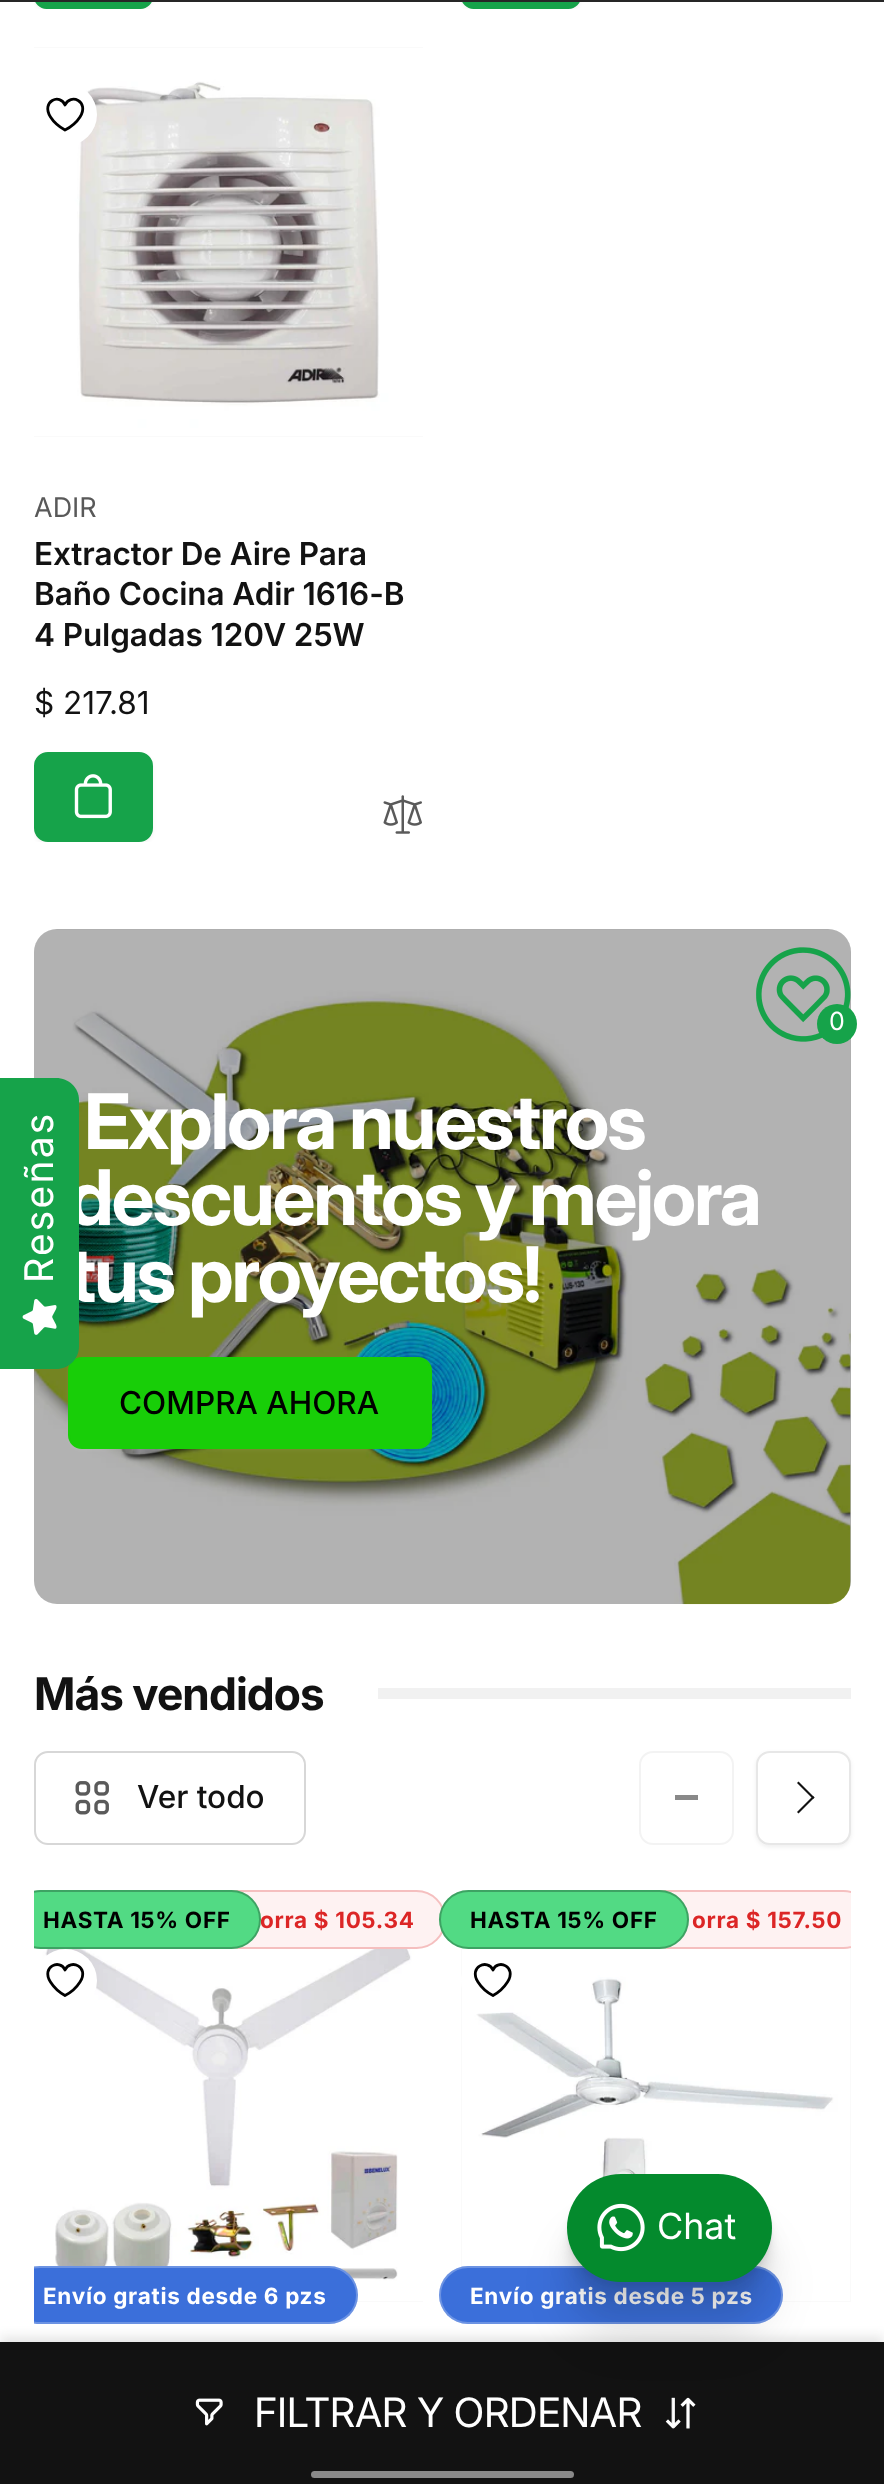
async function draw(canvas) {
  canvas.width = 884;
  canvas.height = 2484;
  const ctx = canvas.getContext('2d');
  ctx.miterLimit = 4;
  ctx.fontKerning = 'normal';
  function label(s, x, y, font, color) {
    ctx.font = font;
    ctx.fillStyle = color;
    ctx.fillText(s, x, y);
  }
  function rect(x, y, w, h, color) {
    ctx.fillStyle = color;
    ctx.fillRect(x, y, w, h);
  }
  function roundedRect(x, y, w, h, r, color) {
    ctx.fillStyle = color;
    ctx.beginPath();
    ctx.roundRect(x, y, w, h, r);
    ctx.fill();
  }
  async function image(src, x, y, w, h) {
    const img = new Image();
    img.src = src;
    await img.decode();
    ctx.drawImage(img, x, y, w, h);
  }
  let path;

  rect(0, 0, 884, 2484, '#fff');
  ctx.save();
  ctx.beginPath();
  ctx.rect(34, 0, 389, 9);
  ctx.clip();
  ctx.fillStyle = '#1212120d';
  ctx.filter = 'blur(2px)';
  ctx.beginPath();
  ctx.roundRect(34, -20, 119, 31, 14);
  ctx.fill();
  ctx.filter = 'none';
  ctx.restore();
  ctx.fillStyle = '#16a34a';
  ctx.beginPath();
  ctx.roundRect(35, -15, 117, 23, 13);
  ctx.fill();
  ctx.strokeStyle = '#16a34a';
  ctx.lineWidth = 2;
  ctx.stroke();
  ctx.save();
  ctx.beginPath();
  ctx.rect(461, 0, 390, 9);
  ctx.clip();
  ctx.fillStyle = '#1212120d';
  ctx.filter = 'blur(2px)';
  ctx.beginPath();
  ctx.roundRect(461, -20, 120, 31, 14);
  ctx.fill();
  ctx.filter = 'none';
  ctx.restore();
  ctx.beginPath();
  ctx.roundRect(462, -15, 118, 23, 13);
  ctx.fill();
  ctx.stroke();
  rect(0, 0, 884, 2, '#262626');
  rect(34, 47, 389, 390, '#fafafa');
  await image('assets/img1.png', 34, 48, 389, 388);
  ctx.fillStyle = '#fff';
  ctx.beginPath();
  ctx.arc(65.5, 114.5, 31.5, 0, 2 * Math.PI);
  ctx.fill();
  path = new Path2D('M65 130C59.5 127 54 122.5 50.5 117C40.5 101 60.5 93 65 105C70 93 90 101 80 117C76.5 122.5 71 127 65 130Z');
  ctx.strokeStyle = '#000';
  ctx.lineWidth = 2.8;
  ctx.lineCap = 'round';
  ctx.lineJoin = 'round';
  ctx.stroke(path);
  label('ADIR', 34, 517, '27px Inter', '#595959');
  ctx.letterSpacing = '-0.1px';
  label('Extractor De Aire Para', 34, 565, '600 31.5px Inter', '#121212');
  label('Baño Cocina Adir 1616-B', 34, 605, '600 31.5px Inter', '#121212');
  label('4 Pulgadas 120V 25W', 34, 646, '600 31.5px Inter', '#121212');
  ctx.letterSpacing = '0px';
  label('$ 217.81', 34, 714, '31.5px Inter', '#121212');
  ctx.save();
  ctx.beginPath();
  ctx.rect(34, 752, 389, 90);
  ctx.clip();
  ctx.fillStyle = '#1212120d';
  ctx.filter = 'blur(2px)';
  ctx.beginPath();
  ctx.roundRect(34, 754, 119, 90, 14);
  ctx.fill();
  ctx.filter = 'none';
  ctx.restore();
  ctx.fillStyle = '#16a34a';
  ctx.beginPath();
  ctx.roundRect(35, 753, 117, 88, 13);
  ctx.fill();
  ctx.strokeStyle = '#16a34a';
  ctx.lineWidth = 2;
  ctx.lineJoin = 'miter';
  ctx.stroke();
  await image('assets/img2.png', 74, 774, 38, 45);
  await image('assets/img3.png', 383, 795, 39, 39);
  rect(357, 2301, 66, 1, '#fafafa');
  await image('assets/img8.png', 34, 1948, 389, 353);
  ctx.save();
  ctx.beginPath();
  ctx.rect(34, 1890, 817, 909);
  ctx.clip();
  roundedRect(11, 2266, 347, 58, 29, '#3b6fda');
  ctx.beginPath();
  ctx.roundRect(12, 2267, 345, 56, 28);
  ctx.strokeStyle = '#ffffff40';
  ctx.stroke();
  ctx.restore();
  rect(461, 1948, 390, 354, '#fafafa');
  await image('assets/img9.png', 462, 1948, 388, 353);
  roundedRect(439, 2266, 344, 58, 29, '#3b6fda');
  ctx.beginPath();
  ctx.roundRect(440, 2267, 342, 56, 28);
  ctx.strokeStyle = '#ffffff40';
  ctx.stroke();
  ctx.fillStyle = '#1212121a';
  ctx.filter = 'blur(5.5px)';
  ctx.beginPath();
  ctx.rect(0, 2336, 884, 141);
  ctx.fill();
  ctx.filter = 'none';
  rect(0, 2342, 884, 142, '#121212');
  await image('assets/img4.png', 195, 2398, 28, 28);
  ctx.letterSpacing = '-0.8px';
  label('FILTRAR Y ORDENAR', 254, 2427, '40.5px "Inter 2"', '#fff');
  await image('assets/img5.png', 665, 2397, 31, 32);
  roundedRect(311, 2471, 263, 7, 3.5, '#898989');
  roundedRect(34, 929, 817, 675, 23, '#fafafa');
  await image('assets/img6.png', 33, 930, 818, 675);
  roundedRect(34, 929, 817, 675, 23, '#0000004d');
  ctx.letterSpacing = '-2.25px';
  label('Explora nuestros', 84, 1149, 'bold 76.5px "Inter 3"', '#fff');
  label('descuentos y mejora', 68, 1225, 'bold 76.5px "Inter 3"', '#fff');
  label('tus proyectos!', 68, 1302, 'bold 76.5px "Inter 3"', '#fff');
  ctx.fillStyle = '#ffffff0d';
  ctx.filter = 'blur(2px)';
  ctx.beginPath();
  ctx.roundRect(68, 1359, 364, 92, 14);
  ctx.fill();
  ctx.filter = 'none';
  ctx.fillStyle = '#18ce08';
  ctx.beginPath();
  ctx.roundRect(69, 1358, 362, 90, 13);
  ctx.fill();
  ctx.strokeStyle = '#18ce08';
  ctx.stroke();
  ctx.letterSpacing = '0px';
  label('COMPRA AHORA', 119, 1414, '500 31.5px Inter', '#000');
  ctx.letterSpacing = '-0.9px';
  label('Más vendidos', 34, 1710, 'bold 45px Inter', '#121212');
  rect(378, 1688, 473, 11, '#f1f1f1');
  ctx.beginPath();
  ctx.roundRect(35, 1752, 270, 92, 13);
  ctx.strokeStyle = '#1212122b';
  ctx.stroke();
  await image('assets/img7.png', 75, 1781, 34, 34);
  ctx.letterSpacing = '0px';
  label('Ver todo', 137, 1808, '500 31.5px Inter', '#121212');
  ctx.beginPath();
  ctx.roundRect(640, 1752, 93, 92, 13);
  ctx.strokeStyle = '#8989891a';
  ctx.stroke();
  rect(675, 1795, 23, 5, '#898989');
  ctx.save();
  path = new Path2D('M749 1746H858V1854H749ZM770 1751H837C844.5 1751 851 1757.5 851 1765V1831C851 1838.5 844.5 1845 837 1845H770C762.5 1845 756 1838.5 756 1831V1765C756 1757.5 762.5 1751 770 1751Z');
  ctx.clip(path, 'evenodd');
  ctx.fillStyle = '#12121212';
  ctx.filter = 'blur(2px)';
  ctx.beginPath();
  ctx.roundRect(756, 1753, 95, 94, 14);
  ctx.fill();
  ctx.filter = 'none';
  ctx.restore();
  ctx.beginPath();
  ctx.roundRect(757, 1752, 93, 92, 13);
  ctx.strokeStyle = '#1212121a';
  ctx.stroke();
  ctx.fillStyle = '#121212';
  path = new Path2D('M797 1783L798.5 1781.5L814.5 1797.5L813 1799Z');
  ctx.fill(path);
  path = new Path2D('M813 1796L814.5 1797.5L798.5 1813.5L797 1812Z');
  ctx.fill(path);
  roundedRect(196, 1890, 250, 59, 29.5, '#fef2f2');
  ctx.beginPath();
  ctx.roundRect(197, 1891, 248, 57, 28.5);
  ctx.strokeStyle = '#dc262640';
  ctx.stroke();
  ctx.letterSpacing = '0.7px';
  label('orra $ 105.34', 260, 1928, 'bold 22.5px "Inter 2"', '#dc2626');
  ctx.save();
  ctx.beginPath();
  ctx.rect(34, 1890, 817, 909);
  ctx.clip();
  roundedRect(11, 1890, 250, 59, 29.5, '#52da84');
  ctx.beginPath();
  ctx.roundRect(12, 1891, 248, 57, 28.5);
  ctx.strokeStyle = '#00000040';
  ctx.stroke();
  ctx.restore();
  label('HASTA 15% OFF', 43, 1928, 'bold 22.5px "Inter 2"', '#000');
  label('Envío gratis desde 6 pzs', 43, 2304, 'bold 22.5px "Inter 2"', '#fff');
  ctx.beginPath();
  ctx.arc(65.5, 1980.5, 31.5, 0, 2 * Math.PI);
  ctx.fill();
  path = new Path2D('M65 1995.5C59.5 1992.5 54 1987.5 50.5 1982C40.5 1966.5 60.5 1958.5 65 1970C70 1958.5 90 1966.5 80 1982C76.5 1987.5 71 1992.5 65 1995.5Z');
  ctx.strokeStyle = '#000';
  ctx.lineWidth = 2.8;
  ctx.lineJoin = 'round';
  ctx.stroke(path);
  ctx.save();
  ctx.beginPath();
  ctx.rect(34, 1890, 817, 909);
  ctx.clip();
  roundedRect(628, 1890, 245, 59, 29.5, '#fef2f2');
  ctx.beginPath();
  ctx.roundRect(629, 1891, 243, 57, 28.5);
  ctx.strokeStyle = '#dc262640';
  ctx.lineWidth = 2;
  ctx.lineJoin = 'miter';
  ctx.stroke();
  ctx.restore();
  roundedRect(439, 1890, 250, 59, 29.5, '#52da84');
  ctx.beginPath();
  ctx.roundRect(440, 1891, 248, 57, 28.5);
  ctx.strokeStyle = '#00000040';
  ctx.lineWidth = 2;
  ctx.lineJoin = 'miter';
  ctx.stroke();
  label('HASTA 15% OFF', 470, 1928, 'bold 22.5px "Inter 2"', '#000');
  label('orra $ 157.50', 692, 1928, 'bold 22.5px "Inter 2"', '#dc2626');
  label('Envío gratis desde 5 pzs', 470, 2304, 'bold 22.5px "Inter 2"', '#fff');
  ctx.beginPath();
  ctx.arc(492.5, 1980.5, 31.5, 0, 2 * Math.PI);
  ctx.fill();
  path = new Path2D('M493 1995.5C487 1992.5 481.5 1987.5 478 1982C468 1966.5 488 1958.5 493 1970C497.5 1958.5 517.5 1966.5 507.5 1982C504 1987.5 498.5 1992.5 493 1995.5Z');
  ctx.strokeStyle = '#000';
  ctx.lineWidth = 2.8;
  ctx.lineJoin = 'round';
  ctx.stroke(path);
  await image('assets/img10.png', 756, 947, 95, 95);
  ctx.fillStyle = '#16a34a';
  ctx.beginPath();
  ctx.arc(837, 1024, 20, 0, 2 * Math.PI);
  ctx.fill();
  ctx.letterSpacing = '0px';
  label('0', 829, 1030, '25px Inter', '#fff');
  ctx.fillStyle = '#16a34a';
  path = new Path2D('M0 1369V1078H56C69 1078 79 1088 79 1100V1346C79 1359 69 1369 56 1369Z');
  ctx.fill(path);
  ctx.letterSpacing = '2.25px';
  ctx.font = '39.5px "Inter 3"';
  ctx.fillStyle = '#fff';
  ctx.save();
  ctx.translate(53, 1283);
  ctx.rotate(-90 * Math.PI / 180);
  ctx.fillText('Reseñas', 0, 0);
  ctx.restore();
  await image('assets/img11.png', 22, 1299, 35, 36);
  ctx.fillStyle = '#0000001a';
  ctx.filter = 'blur(22.5px)';
  ctx.beginPath();
  ctx.roundRect(567, 2230, 205, 108, 54);
  ctx.fill();
  ctx.filter = 'none';
  ctx.fillStyle = '#0000000f';
  ctx.filter = 'blur(10.5px)';
  ctx.beginPath();
  ctx.roundRect(567, 2203, 205, 108, 54);
  ctx.fill();
  ctx.filter = 'none';
  ctx.filter = 'blur(4.5px)';
  ctx.beginPath();
  ctx.roundRect(567, 2187, 205, 108, 54);
  ctx.fill();
  ctx.filter = 'none';
  ctx.fillStyle = '#0000000a';
  ctx.filter = 'blur(1.5px)';
  ctx.beginPath();
  ctx.roundRect(567, 2178, 205, 108, 54);
  ctx.fill();
  ctx.filter = 'none';
  roundedRect(567, 2174, 205, 108, 54, '#048a2d');
  await image('assets/img12.png', 597, 2203, 48, 49);
  ctx.letterSpacing = '0px';
  label('Chat', 657, 2239, '36px "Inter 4"', '#fff');
}

draw(document.querySelector('canvas'));
